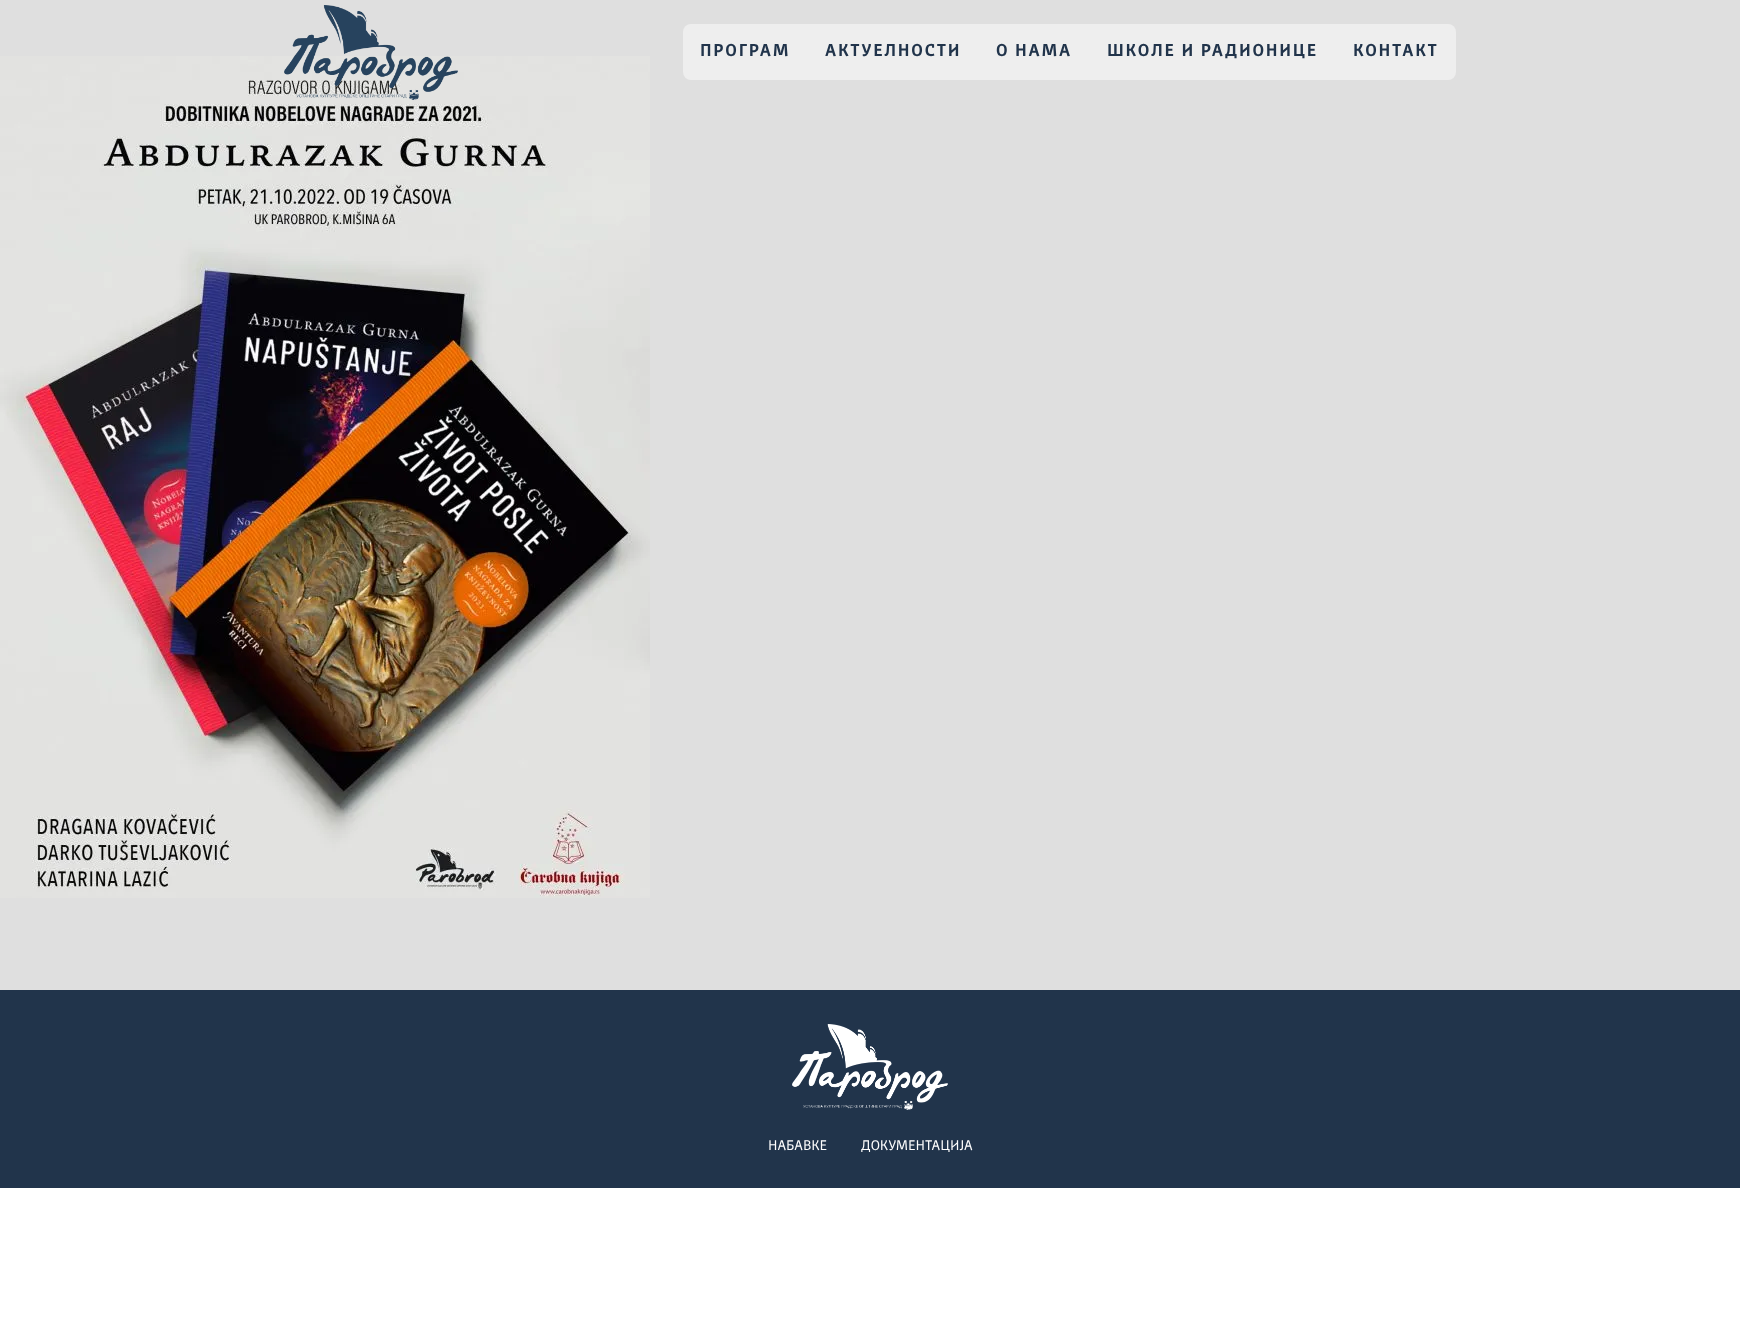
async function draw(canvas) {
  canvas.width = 1740;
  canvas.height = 1334;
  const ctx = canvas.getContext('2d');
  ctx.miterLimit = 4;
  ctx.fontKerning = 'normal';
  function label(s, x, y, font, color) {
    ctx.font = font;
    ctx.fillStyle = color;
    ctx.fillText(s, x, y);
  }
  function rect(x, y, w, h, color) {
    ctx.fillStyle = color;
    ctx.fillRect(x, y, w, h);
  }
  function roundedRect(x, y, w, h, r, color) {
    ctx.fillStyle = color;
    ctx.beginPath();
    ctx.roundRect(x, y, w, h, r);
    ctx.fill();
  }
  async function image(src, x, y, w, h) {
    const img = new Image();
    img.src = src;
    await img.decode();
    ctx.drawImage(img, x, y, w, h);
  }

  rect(0, 0, 1740, 1334, '#fff');
  rect(0, 0, 1740, 990, '#dfdfdf');
  await image('assets/img2.png', 0, 56, 650, 842);
  await image('assets/img1.png', 284, 5, 174, 95);
  roundedRect(683, 24, 773, 56, 8, '#eee');
  ctx.letterSpacing = '1.75px';
  label('ПРОГРАМ', 700, 56, 'bold 17.4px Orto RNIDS', '#21344b');
  label('АКТУЕЛНОСТИ', 825, 56, 'bold 17.4px Orto RNIDS', '#21344b');
  label('О НАМА', 996, 56, 'bold 17.4px Orto RNIDS', '#21344b');
  label('ШКОЛЕ И РАДИОНИЦЕ', 1107, 56, 'bold 17.4px Orto RNIDS', '#21344b');
  label('КОНТАКТ', 1353, 56, 'bold 17.4px Orto RNIDS', '#21344b');
  rect(0, 990, 1740, 198, '#21344b');
  await image('assets/img3.png', 792, 1024, 156, 86);
  ctx.letterSpacing = '0px';
  label('НАБАВКЕ', 768, 1150, '14px Orto RNIDS', '#fff');
  label('ДОКУМЕНТАЦИЈА', 861, 1150, '14px Orto RNIDS', '#fff');
}

draw(document.querySelector('canvas'));
